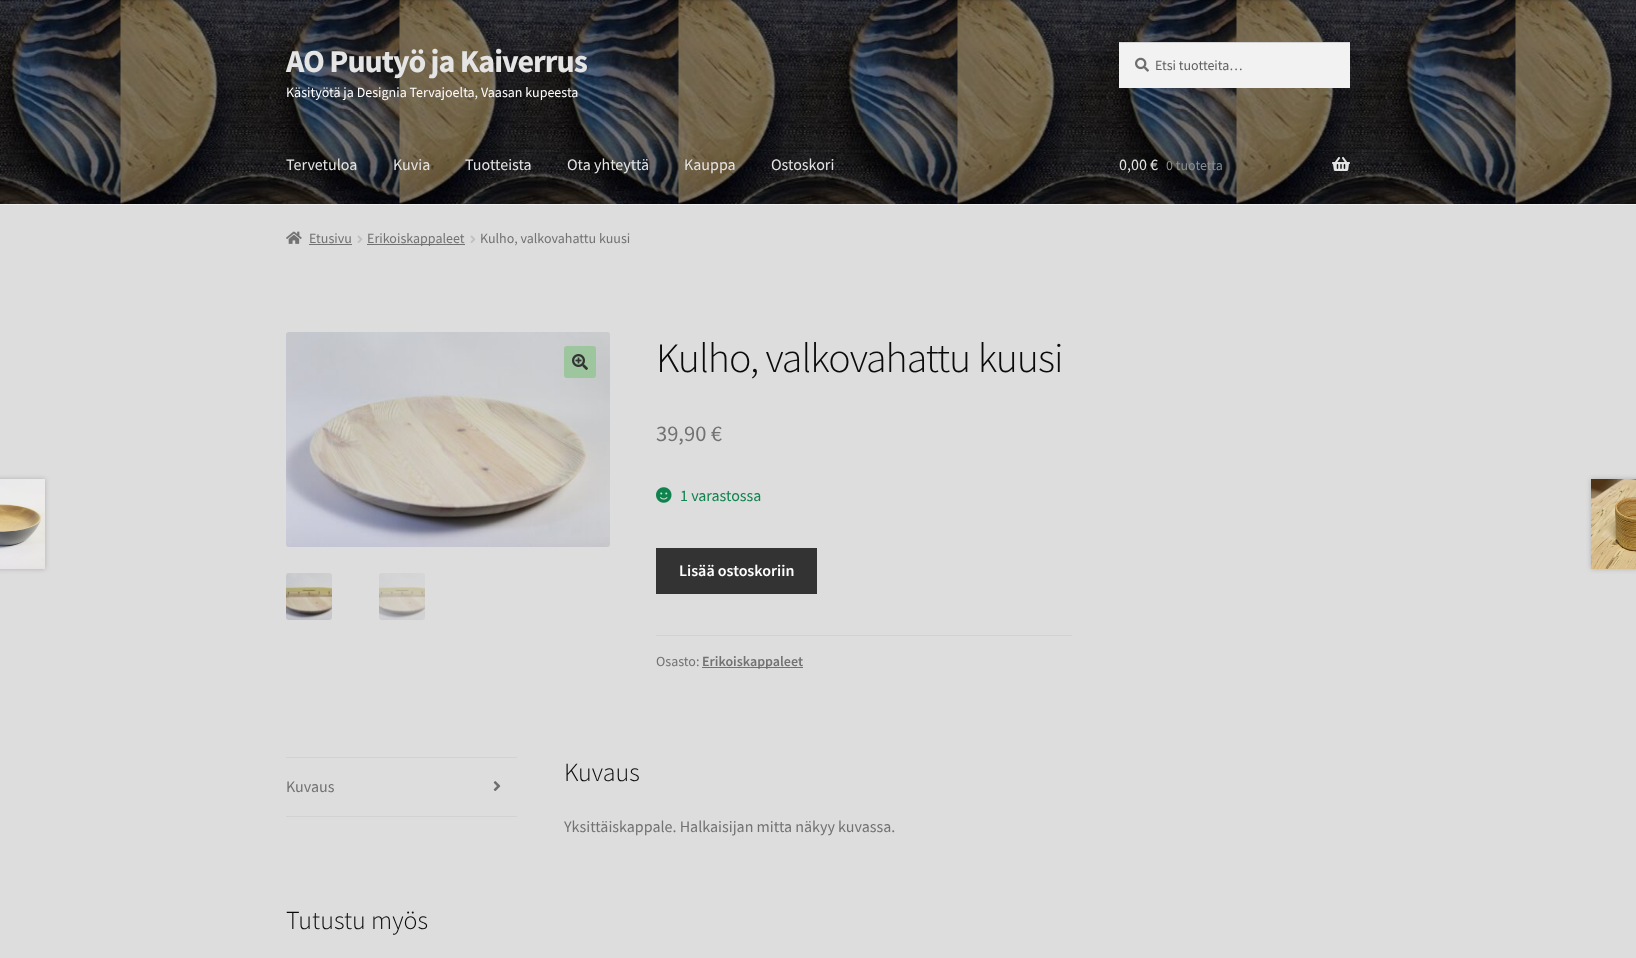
async function draw(canvas) {
  canvas.width = 1636;
  canvas.height = 958;
  const ctx = canvas.getContext('2d');
  ctx.miterLimit = 4;
  ctx.fontKerning = 'normal';
  function label(s, x, y, font, color) {
    ctx.font = font;
    ctx.fillStyle = color;
    ctx.fillText(s, x, y);
  }
  function rect(x, y, w, h, color) {
    ctx.fillStyle = color;
    ctx.fillRect(x, y, w, h);
  }
  function roundedRect(x, y, w, h, r, color) {
    ctx.fillStyle = color;
    ctx.beginPath();
    ctx.roundRect(x, y, w, h, r);
    ctx.fill();
  }
  async function image(src, x, y, w, h) {
    const img = new Image();
    img.src = src;
    await img.decode();
    ctx.drawImage(img, x, y, w, h);
  }

  rect(0, 0, 1636, 958, '#ddd');
  await image('assets/img1.png', 0, 0, 1636, 204);
  ctx.fillStyle = '#00000033';
  ctx.filter = 'blur(1px)';
  ctx.beginPath();
  ctx.rect(0, -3, 1636, 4);
  ctx.fill();
  ctx.filter = 'none';
  rect(0, 204, 1636, 1, '#f0f0f0');
  ctx.letterSpacing = '-1px';
  label('AO Puutyö ja Kaiverrus', 286, 72, 'bold 32px Source Sans Pro', '#e5e5e5');
  ctx.letterSpacing = '0px';
  label('Käsityötä ja Designia Tervajoelta, Vaasan kupeesta', 286, 97, '14px Source Sans Pro', '#fff');
  rect(1119, 43, 231, 45, '#f2f2f2');
  await image('assets/img2.png', 1135, 57, 14, 15);
  rect(1119, 42, 231, 1, '#d4d4d4');
  label('Etsi tuotteita…', 1155, 70, '14px Source Sans Pro', '#616161');
  label('Tervetuloa', 286, 170, '16px Source Sans Pro', '#e5e5e5');
  label('Kuvia', 393, 170, '16px Source Sans Pro', '#e5e5e5');
  label('Tuotteista', 465, 170, '16px Source Sans Pro', '#e5e5e5');
  label('Ota yhteyttä', 567, 170, '16px Source Sans Pro', '#e5e5e5');
  label('Kauppa', 684, 170, '16px Source Sans Pro', '#e5e5e5');
  label('Ostoskori', 771, 170, '16px Source Sans Pro', '#e5e5e5');
  label('0,00 €', 1119, 170, '16px Source Sans Pro', '#e5e5e5');
  label('0 tuotetta', 1166, 170, '14px Source Sans Pro', '#898c8f');
  await image('assets/img3.png', 1332, 157, 18, 14);
  await image('assets/img4.png', 286, 231, 16, 13);
  label('Etusivu', 309, 243, '14px Source Sans Pro', '#727272');
  rect(309, 244, 43, 1, '#727272');
  await image('assets/img5.png', 357, 235, 6, 8);
  rect(367, 244, 98, 1, '#727272');
  label('Erikoiskappaleet', 367, 243, '14px Source Sans Pro', '#727272');
  await image('assets/img5.png', 470, 235, 6, 8);
  label('Kulho, valkovahattu kuusi', 480, 243, '14px Source Sans Pro', '#727272');
  await image('assets/img6.png', 286, 332, 324, 215);
  roundedRect(564, 346, 32, 32, 3, '#9dc69e');
  await image('assets/img7.png', 572, 354, 16, 16);
  await image('assets/img8.png', 286, 573, 46, 47);
  await image('assets/img9.png', 379, 573, 46, 47);
  ctx.letterSpacing = '-1px';
  label('Kulho, valkovahattu kuusi', 656, 372, '300 41.9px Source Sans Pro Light', '#0a0a0a');
  ctx.letterSpacing = '0px';
  label('39,90 €', 656, 441, '22.5px Source Sans Pro', '#727272');
  await image('assets/img10.png', 656, 487, 16, 16);
  label('1 varastossa', 680, 501, '16px Source Sans Pro', '#0f834d');
  rect(656, 548, 161, 46, '#333');
  label('Lisää ostoskoriin', 679, 576, '600 16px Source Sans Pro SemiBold', '#fff');
  rect(656, 635, 416, 1, '#d2d2d2');
  label('Osasto:', 656, 666, '14px Source Sans Pro', '#727272');
  rect(702, 667, 101, 1, '#727272');
  label('Erikoiskappaleet', 702, 666, '600 14px Source Sans Pro SemiBold', '#727272');
  ctx.fillStyle = '#00000033';
  ctx.filter = 'blur(2.5px)';
  ctx.beginPath();
  ctx.rect(-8, 479, 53, 90);
  ctx.fill();
  ctx.filter = 'none';
  await image('assets/img11.png', 0, 479, 45, 90);
  ctx.filter = 'blur(2.5px)';
  ctx.beginPath();
  ctx.rect(1591, 479, 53, 90);
  ctx.fill();
  ctx.filter = 'none';
  await image('assets/img12.png', 1591, 479, 45, 90);
  rect(286, 757, 231, 1, '#d2d2d2');
  rect(286, 816, 231, 1, '#d2d2d2');
  label('Kuvaus', 286, 792, '16px Source Sans Pro', '#727272');
  await image('assets/img13.png', 493, 781, 8, 10);
  label('Kuvaus', 564, 781, '300 26px Source Sans Pro Light', '#0a0a0a');
  label('Yksittäiskappale. Halkaisijan mitta näkyy kuvassa.', 564, 832, '16px Source Sans Pro', '#727272');
  label('Tutustu myös', 286, 929, '300 26px Source Sans Pro Light', '#0a0a0a');
}

draw(document.querySelector('canvas'));
